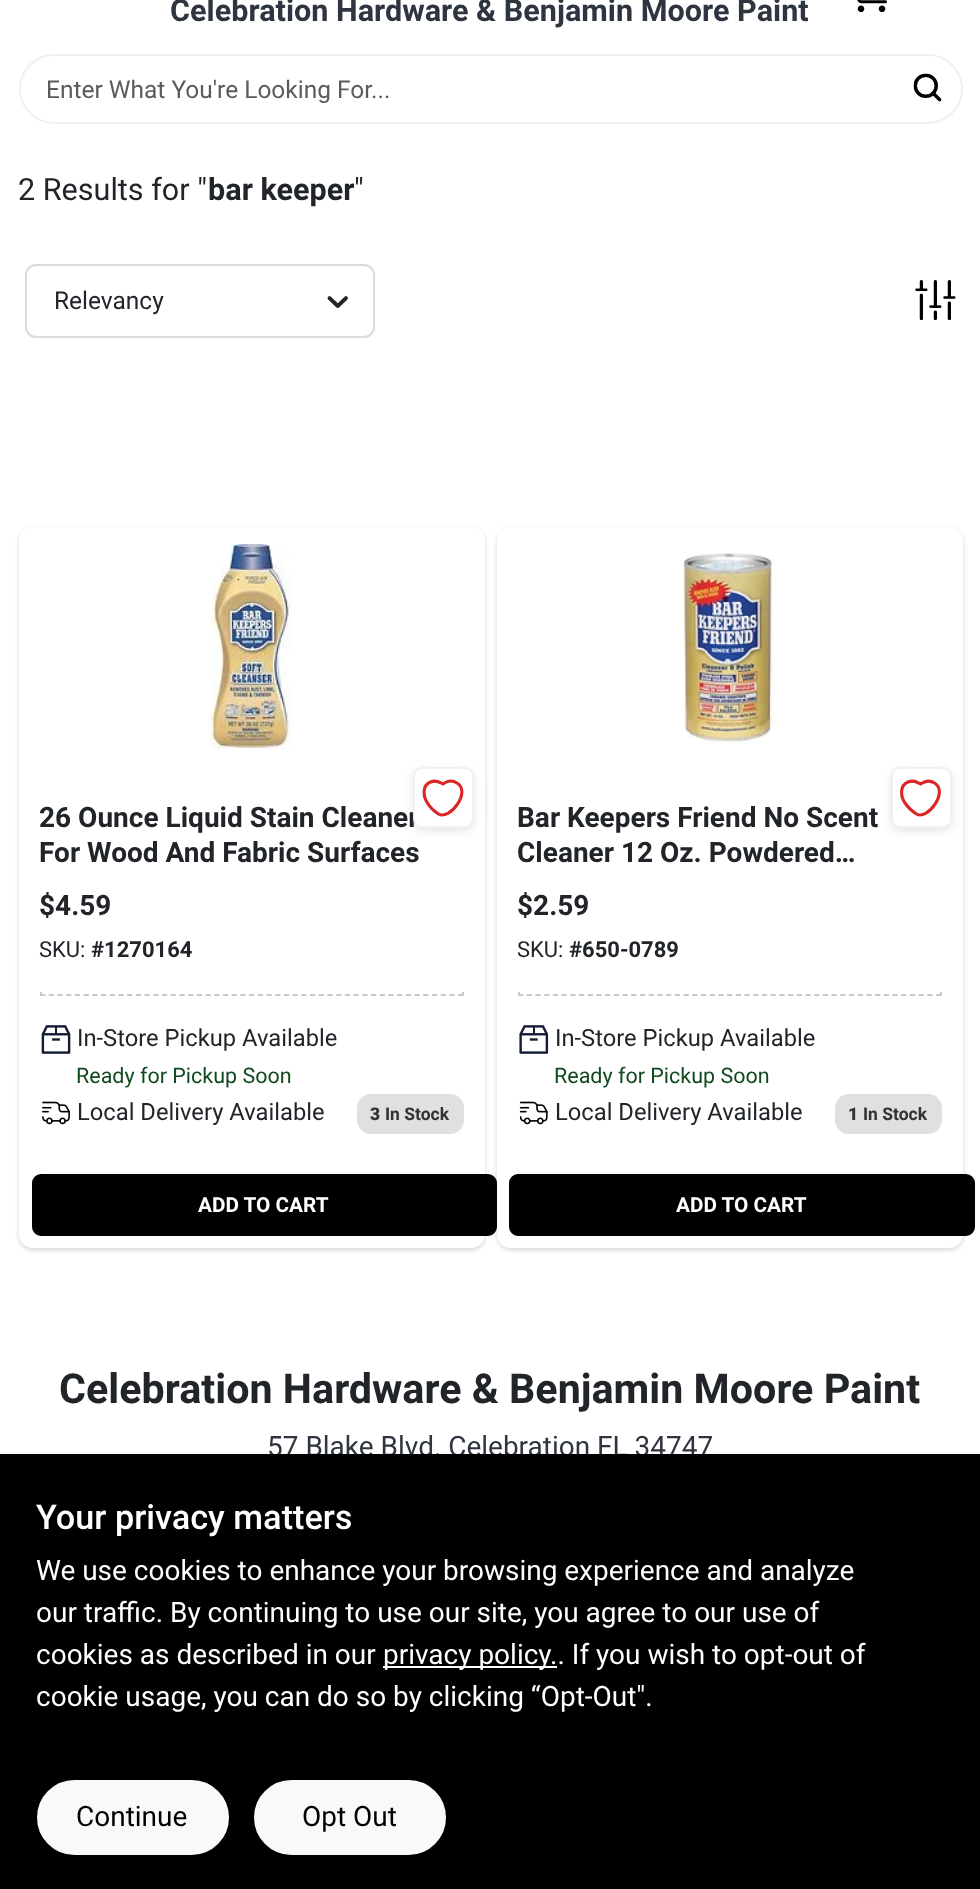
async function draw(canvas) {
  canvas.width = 980;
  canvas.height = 1889;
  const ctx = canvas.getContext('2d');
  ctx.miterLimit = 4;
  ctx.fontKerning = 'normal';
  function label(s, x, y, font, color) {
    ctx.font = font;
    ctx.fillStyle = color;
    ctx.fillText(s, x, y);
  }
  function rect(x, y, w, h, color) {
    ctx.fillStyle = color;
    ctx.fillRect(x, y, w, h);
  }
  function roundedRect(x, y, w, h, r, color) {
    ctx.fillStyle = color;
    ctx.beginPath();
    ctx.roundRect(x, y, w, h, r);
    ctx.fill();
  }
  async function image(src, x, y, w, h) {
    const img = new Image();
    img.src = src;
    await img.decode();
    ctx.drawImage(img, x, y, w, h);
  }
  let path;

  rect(0, 0, 980, 1889, '#fff');
  label('Celebration Hardware & Benjamin Moore Paint', 170, 21, 'bold 30.6px Roboto', '#2f3540');
  await image('assets/img1.png', 857, 0, 30, 12);
  ctx.beginPath();
  ctx.roundRect(20, 55, 942, 68, 34);
  ctx.strokeStyle = '#f0f0f0';
  ctx.lineWidth = 2;
  ctx.stroke();
  label('Enter What You\'re Looking For...', 46, 98, '24.5px Roboto', '#595c5f');
  await image('assets/img2.png', 913, 73, 29, 29);
  label('2 Results for "', 18, 200, '30.6px Roboto', '#212529');
  label('bar keeper', 208, 200, 'bold 30.6px Roboto', '#212529');
  label('"', 354, 200, '30.6px Roboto', '#212529');
  ctx.beginPath();
  ctx.roundRect(26, 265, 348, 72, 10);
  ctx.strokeStyle = '#d8dbdf';
  ctx.stroke();
  label('Relevancy', 54, 309, '24.5px Roboto', '#212529');
  await image('assets/img3.png', 327, 296, 21, 12);
  await image('assets/img4.png', 915, 280, 41, 40);
  ctx.fillStyle = '#0000000f';
  ctx.filter = 'blur(2px)';
  ctx.beginPath();
  ctx.roundRect(19, 529, 466, 721, 14);
  ctx.fill();
  ctx.filter = 'none';
  ctx.fillStyle = '#0000001a';
  ctx.filter = 'blur(2.5px)';
  ctx.beginPath();
  ctx.roundRect(19, 529, 466, 721, 14);
  ctx.fill();
  ctx.filter = 'none';
  roundedRect(19, 527, 466, 721, 14, '#fff');
  await image('assets/img5.png', 210, 544, 83, 205);
  ctx.fillStyle = '#0000001a';
  ctx.filter = 'blur(4.5px)';
  ctx.beginPath();
  ctx.roundRect(413, 770, 61, 61, 9);
  ctx.fill();
  ctx.filter = 'none';
  label('26 Ounce Liquid Stain Cleaner', 39, 827, 'bold 28px Roboto', '#212529');
  ctx.fillStyle = '#fff';
  ctx.beginPath();
  ctx.roundRect(414, 768, 59, 59, 8);
  ctx.fill();
  ctx.strokeStyle = '#f0f0f0';
  ctx.stroke();
  path = new Path2D('M457 783C453 780.5 448.5 780.5 444.5 783L443 784L441 783C437.5 781 434 780.5 430.5 782C422 785.5 423 796.5 427.5 803C430 807.5 434 811 438.5 814C450 820.5 471.5 791.5 457 783Z');
  ctx.strokeStyle = '#dc2626';
  ctx.lineWidth = 3.1;
  ctx.lineCap = 'round';
  ctx.stroke(path);
  label('For Wood And Fabric Surfaces', 39, 862, 'bold 28px Roboto', '#212529');
  label('$4.59', 39, 915, 'bold 28px Roboto', '#212529');
  label('SKU:', 39, 957, '22px Roboto', '#212529');
  label('#1270164', 91, 957, 'bold 22px Roboto', '#212529');
  rect(462, 992, 2, 4, '#c8c9ca');
  path = new Path2D('M40 995H464');
  ctx.strokeStyle = '#c8c9ca';
  ctx.lineWidth = 1.8;
  ctx.lineCap = 'butt';
  ctx.setLineDash([5.25, 3.46]);
  ctx.stroke(path);
  rect(40, 992, 2, 4, '#c8c9ca');
  await image('assets/img6.png', 41, 1025, 30, 29);
  label('In-Store Pickup Available', 77, 1046, '23.75px Roboto', '#212529');
  label('Ready for Pickup Soon', 76, 1083, '21.5px Roboto', '#124a1f');
  await image('assets/img7.png', 42, 1101, 28, 24);
  label('Local Delivery Available', 77, 1120, '23.75px Roboto', '#212529');
  roundedRect(357, 1094, 107, 40, 14, '#e0e0e0');
  label('3', 370, 1120, '900 17.5px Roboto', '#333');
  label('In Stock', 385, 1120, 'bold 17.5px Roboto', '#333');
  ctx.fillStyle = '#000';
  ctx.beginPath();
  ctx.roundRect(33, 1175, 463, 60, 8);
  ctx.fill();
  ctx.strokeStyle = '#000';
  ctx.lineWidth = 2;
  ctx.setLineDash([]);
  ctx.stroke();
  label('ADD TO CART', 198, 1212, 'bold 20.75px Roboto', '#fff');
  ctx.fillStyle = '#0000000f';
  ctx.filter = 'blur(2px)';
  ctx.beginPath();
  ctx.roundRect(497, 529, 466, 721, 14);
  ctx.fill();
  ctx.filter = 'none';
  ctx.fillStyle = '#0000001a';
  ctx.filter = 'blur(2.5px)';
  ctx.beginPath();
  ctx.roundRect(497, 529, 466, 721, 14);
  ctx.fill();
  ctx.filter = 'none';
  roundedRect(497, 527, 466, 721, 14, '#fff');
  await image('assets/img8.png', 682, 553, 93, 191);
  ctx.fillStyle = '#0000001a';
  ctx.filter = 'blur(4.5px)';
  ctx.beginPath();
  ctx.roundRect(891, 770, 61, 61, 9);
  ctx.fill();
  ctx.filter = 'none';
  ctx.fillStyle = '#fff';
  ctx.beginPath();
  ctx.roundRect(892, 768, 59, 59, 8);
  ctx.fill();
  ctx.strokeStyle = '#f0f0f0';
  ctx.stroke();
  path = new Path2D('M934.5 783C930.5 780.5 926.5 780.5 922.5 783L920.5 784L918.5 783C915.5 781 912 780.5 908 782C899.5 785.5 900.5 796.5 905 803C908 807.5 912 811 916.5 814C927.5 820.5 949 791.5 934.5 783Z');
  ctx.strokeStyle = '#dc2626';
  ctx.lineWidth = 3.1;
  ctx.lineCap = 'round';
  ctx.stroke(path);
  label('Bar Keepers Friend No Scent', 517, 827, 'bold 28px Roboto', '#212529');
  label('Cleaner 12 Oz. Powdered…', 517, 862, 'bold 28px Roboto', '#212529');
  label('$2.59', 517, 915, 'bold 28px Roboto', '#212529');
  label('SKU:', 517, 957, '22px Roboto', '#212529');
  label('#650-0789', 569, 957, 'bold 22px Roboto', '#212529');
  rect(940, 992, 2, 4, '#c8c9ca');
  path = new Path2D('M518 995H941.5');
  ctx.strokeStyle = '#c8c9ca';
  ctx.lineWidth = 1.8;
  ctx.lineCap = 'butt';
  ctx.setLineDash([5.25, 3.46]);
  ctx.stroke(path);
  rect(518, 992, 2, 4, '#c8c9ca');
  await image('assets/img9.png', 519, 1025, 30, 29);
  label('In-Store Pickup Available', 555, 1046, '23.75px Roboto', '#212529');
  label('Ready for Pickup Soon', 554, 1083, '21.5px Roboto', '#124a1f');
  await image('assets/img10.png', 519, 1101, 29, 24);
  label('Local Delivery Available', 555, 1120, '23.75px Roboto', '#212529');
  roundedRect(835, 1094, 107, 40, 14, '#e0e0e0');
  label('1', 848, 1120, '900 17.5px Roboto', '#333');
  label('In Stock', 863, 1120, 'bold 17.5px Roboto', '#333');
  ctx.fillStyle = '#000';
  ctx.beginPath();
  ctx.roundRect(510, 1175, 464, 60, 8);
  ctx.fill();
  ctx.strokeStyle = '#000';
  ctx.lineWidth = 2;
  ctx.setLineDash([]);
  ctx.stroke();
  label('ADD TO CART', 676, 1212, 'bold 20.75px Roboto', '#fff');
  label('Celebration Hardware & Benjamin Moore Paint', 59, 1403, 'bold 41.25px Roboto', '#212529');
  label('57 Blake Blvd. Celebration FL 34747', 267, 1456, '28px Roboto', '#2f3540');
  rect(0, 1454, 980, 435, '#000');
  label('Your privacy matters', 36, 1529, '500 34.25px Roboto', '#fff');
  label('We use cookies to enhance your browsing experience and analyze', 36, 1580, '28px Roboto', '#fff');
  label('our traffic. By continuing to use our site, you agree to our use of', 36, 1622, '28px Roboto', '#fff');
  label('cookies as described in our', 36, 1664, '28px Roboto', '#fff');
  rect(383, 1666, 174, 2, '#fff');
  label('privacy policy.. If you wish to opt-out of', 383, 1664, '28px Roboto', '#fff');
  label('cookie usage, you can do so by clicking “Opt-Out".', 36, 1706, '28px Roboto', '#fff');
  ctx.fillStyle = '#f8f9fa';
  ctx.beginPath();
  ctx.roundRect(38, 1781, 190, 73, 36.5);
  ctx.fill();
  ctx.strokeStyle = '#f8f9fa';
  ctx.stroke();
  label('Continue', 76, 1826, '28px Roboto', '#000');
  ctx.fillStyle = '#f8f9fa';
  ctx.beginPath();
  ctx.roundRect(255, 1781, 190, 73, 36.5);
  ctx.fill();
  ctx.stroke();
  label('Opt Out', 302, 1826, '28px Roboto', '#000');
}

draw(document.querySelector('canvas'));
